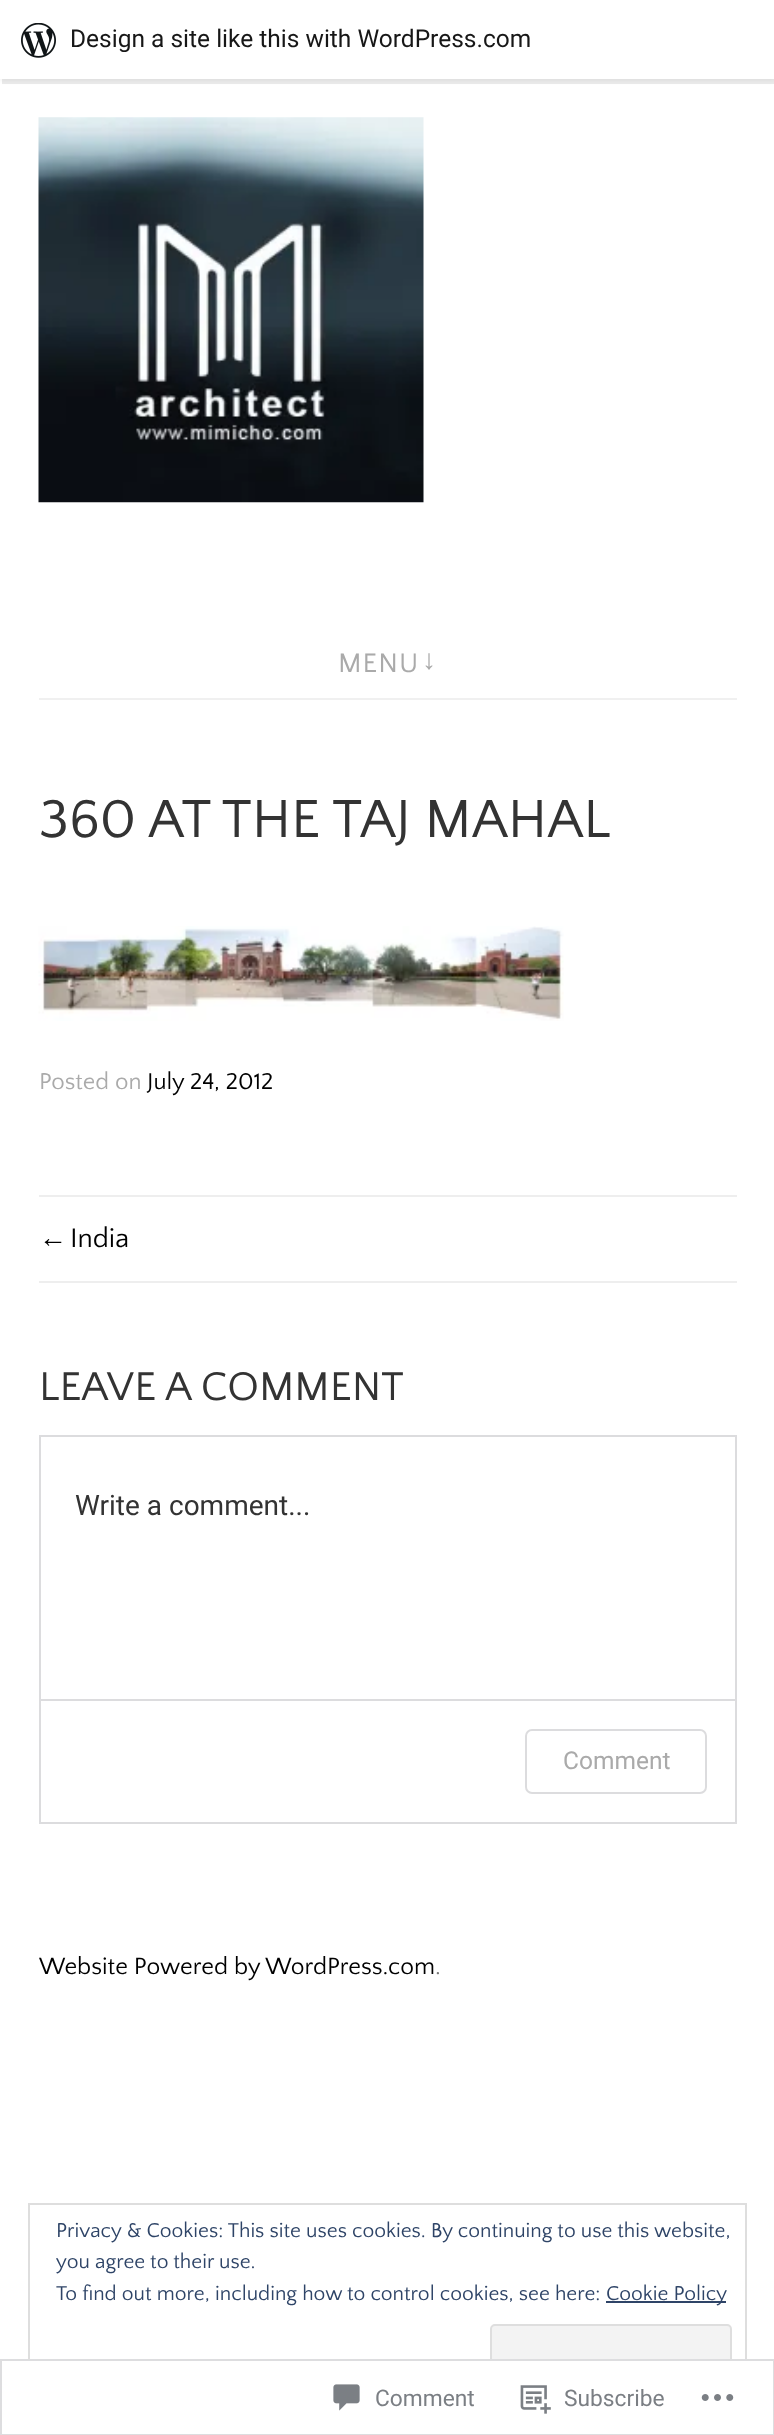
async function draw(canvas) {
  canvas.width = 774;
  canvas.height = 2435;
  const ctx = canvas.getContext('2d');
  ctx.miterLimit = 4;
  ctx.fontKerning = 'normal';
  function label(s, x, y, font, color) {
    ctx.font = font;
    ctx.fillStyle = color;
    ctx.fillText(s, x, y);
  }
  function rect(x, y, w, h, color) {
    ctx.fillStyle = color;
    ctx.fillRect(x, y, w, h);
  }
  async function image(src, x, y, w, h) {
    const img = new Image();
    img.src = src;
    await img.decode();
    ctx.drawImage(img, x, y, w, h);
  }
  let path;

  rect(0, 0, 774, 2435, '#fff');
  ctx.fillStyle = '#0000000d';
  ctx.filter = 'blur(2px)';
  ctx.beginPath();
  ctx.rect(0, 2, 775, 79);
  ctx.fill();
  ctx.filter = 'none';
  ctx.fillStyle = '#00000014';
  path = new Path2D('M2 79V84H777V5H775V79Z');
  ctx.fill(path);
  rect(0, 0, 774, 79, '#fff');
  await image('assets/img1.png', 21, 23, 35, 35);
  label('Design a site like this with WordPress.com', 70, 47, '24.5px Roboto', '#171717');
  await image('assets/img2.png', 38, 117, 386, 386);
  rect(39, 698, 698, 2, '#f0f0f0');
  ctx.letterSpacing = '1px';
  label('MENU', 338, 672, '28px Quattrocento Sans', '#aaa');
  label('↓', 422, 669, '28px Liberation Sans', '#aaa');
  ctx.letterSpacing = '0px';
  label('360 AT THE TAJ MAHAL', 39, 837, '56px Quattrocento Sans', '#333');
  await image('assets/img3.png', 38, 926, 526, 95);
  label('Posted on', 39, 1089, '24px Quattrocento Sans', '#aaa');
  label('July 24, 2012', 147, 1089, '24px Quattrocento Sans', '#000');
  rect(39, 1195, 698, 2, '#eee');
  rect(39, 1281, 698, 2, '#eee');
  label('←', 39, 1247, '28px Liberation Sans', '#000');
  label('India', 70, 1247, '28px Quattrocento Sans', '#000');
  label('LEAVE A COMMENT', 39, 1400, '42px Quattrocento Sans', '#333');
  ctx.strokeStyle = '#dcdcde';
  ctx.lineWidth = 2;
  ctx.strokeRect(40, 1436, 696, 387);
  label('Write a comment...', 75, 1515, '28px Roboto', '#333');
  rect(40, 1699, 695, 2, '#dcdcde');
  ctx.beginPath();
  ctx.roundRect(526, 1730, 180, 63, 6);
  ctx.stroke();
  label('Comment', 563, 1769, '24.5px Roboto', '#aaa');
  label('Website Powered by WordPress.com', 39, 1974, '24.5px Quattrocento Sans', '#000');
  label('.', 435, 1974, '24.5px Quattrocento Sans', '#777');
  ctx.strokeStyle = '#dedede';
  ctx.strokeRect(29, 2204, 717, 203);
  label('Privacy & Cookies: This site uses cookies. By continuing to use this website,', 56, 2237, '21px Quattrocento Sans', '#2e4467');
  label('you agree to their use.', 56, 2268, '21px Quattrocento Sans', '#2e4467');
  label('To find out more, including how to control cookies, see here:', 56, 2300, '21px Quattrocento Sans', '#2e4467');
  rect(606, 2301, 120, 2, '#2e4467');
  label('Cookie Policy', 606, 2300, '21px Quattrocento Sans', '#2e4467');
  ctx.fillStyle = '#f3f3f3';
  ctx.beginPath();
  ctx.roundRect(491, 2325, 240, 66, 4);
  ctx.fill();
  ctx.stroke();
  rect(28, 2359, 719, 49, '#fffffffa');
  ctx.strokeStyle = '#dcdcdefa';
  ctx.strokeRect(1, 2360, 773, 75);
  await image('assets/img4.png', 333, 2384, 27, 27);
  label('Comment', 375, 2406, '22.75px Roboto', '#7b7f84');
  await image('assets/img5.png', 520, 2385, 31, 29);
  label('Subscribe', 564, 2406, '22.75px Roboto', '#7b7f84');
  await image('assets/img6.png', 701, 2394, 33, 7);
}

draw(document.querySelector('canvas'));
